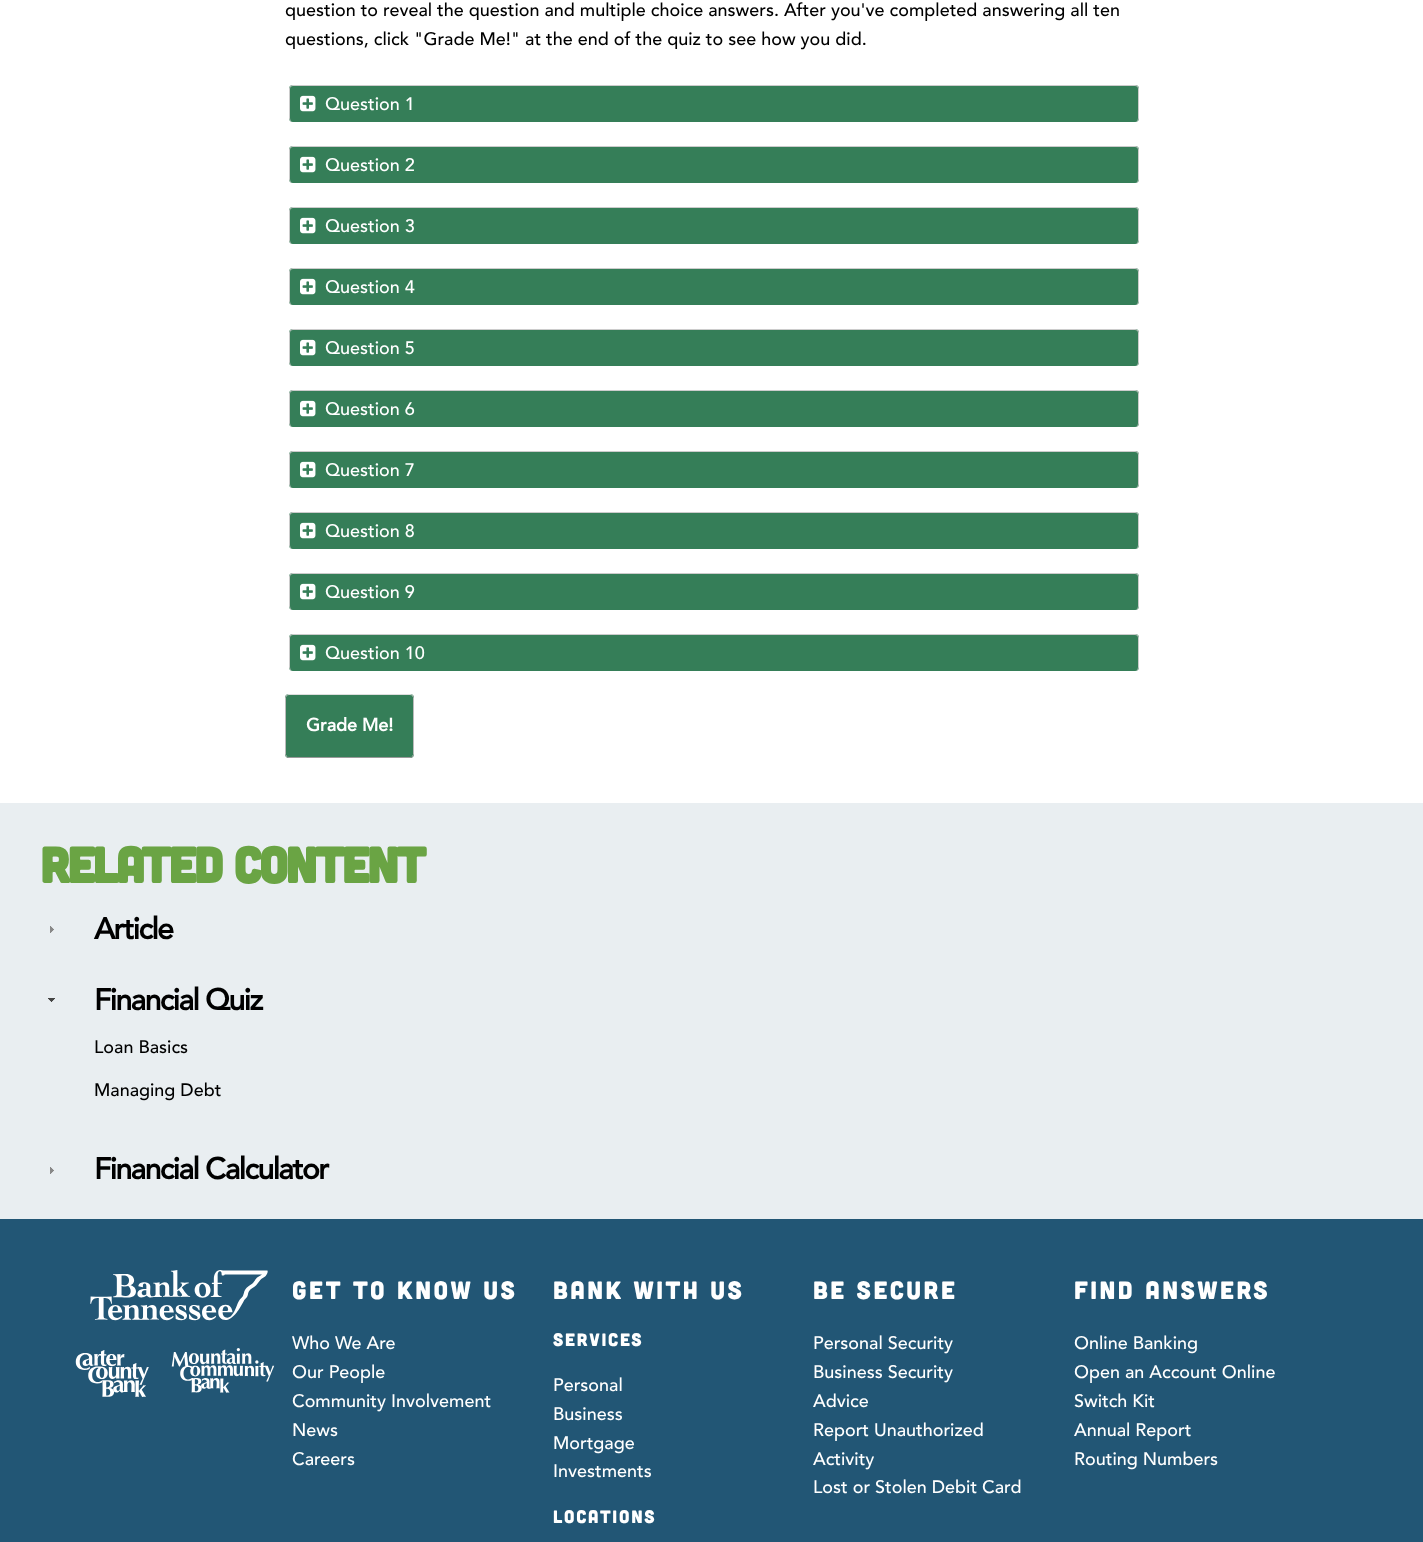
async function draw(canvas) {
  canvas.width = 1423;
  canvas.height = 1542;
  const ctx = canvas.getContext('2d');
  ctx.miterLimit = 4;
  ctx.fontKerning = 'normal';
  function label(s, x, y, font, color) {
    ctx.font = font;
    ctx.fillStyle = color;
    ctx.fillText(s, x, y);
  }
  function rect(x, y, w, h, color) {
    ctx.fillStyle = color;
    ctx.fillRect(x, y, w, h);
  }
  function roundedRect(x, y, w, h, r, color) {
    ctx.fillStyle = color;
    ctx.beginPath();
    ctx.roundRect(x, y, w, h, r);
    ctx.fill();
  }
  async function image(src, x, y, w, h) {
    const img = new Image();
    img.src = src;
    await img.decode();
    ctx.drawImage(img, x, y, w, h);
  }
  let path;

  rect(0, 0, 1423, 1542, '#fff');
  label('question to reveal the question and multiple choice answers. After you\'ve completed answering all ten', 285, 16, '500 18px "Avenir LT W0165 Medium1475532"', '#000');
  label('questions, click "Grade Me!" at the end of the quiz to see how you did.', 285, 45, '500 18px "Avenir LT W0165 Medium1475532"', '#000');
  roundedRect(289, 85, 850, 37, 4, '#357e58');
  ctx.fillStyle = '#ccc';
  path = new Path2D('M293 85H1135C1137 85 1139 87 1139 89V118C1139 120 1137 122 1135 122H293C291 122 289 120 289 118V89C289 87 291 85 293 85ZM293 86H1135C1137 86 1138 87 1138 89V118C1138 120 1137 122 1135 122H293C291 122 290 120 290 118V89C290 87 291 86 293 86Z');
  ctx.fill(path, 'evenodd');
  await image('assets/img1.png', 300, 95, 16, 17);
  label('Question 1', 325, 110, '500 18px "Avenir LT W0165 Medium1475532"', '#fff');
  roundedRect(289, 146, 850, 37, 4, '#357e58');
  ctx.fillStyle = '#ccc';
  path = new Path2D('M293 146H1135C1137 146 1139 148 1139 150V179C1139 181 1137 183 1135 183H293C291 183 289 181 289 179V150C289 148 291 146 293 146ZM293 147H1135C1137 147 1138 148 1138 150V179C1138 181 1137 183 1135 183H293C291 183 290 181 290 179V150C290 148 291 147 293 147Z');
  ctx.fill(path, 'evenodd');
  await image('assets/img1.png', 300, 156, 16, 17);
  label('Question 2', 325, 171, '500 18px "Avenir LT W0165 Medium1475532"', '#fff');
  roundedRect(289, 207, 850, 37, 4, '#357e58');
  ctx.fillStyle = '#ccc';
  path = new Path2D('M293 207H1135C1137 207 1139 209 1139 211V240C1139 242 1137 244 1135 244H293C291 244 289 242 289 240V211C289 209 291 207 293 207ZM293 208H1135C1137 208 1138 209 1138 211V240C1138 242 1137 244 1135 244H293C291 244 290 242 290 240V211C290 209 291 208 293 208Z');
  ctx.fill(path, 'evenodd');
  await image('assets/img1.png', 300, 217, 16, 17);
  label('Question 3', 325, 232, '500 18px "Avenir LT W0165 Medium1475532"', '#fff');
  roundedRect(289, 268, 850, 37, 4, '#357e58');
  ctx.fillStyle = '#ccc';
  path = new Path2D('M293 268H1135C1137 268 1139 270 1139 272V301C1139 303 1137 305 1135 305H293C291 305 289 303 289 301V272C289 270 291 268 293 268ZM293 269H1135C1137 269 1138 270 1138 272V301C1138 303 1137 305 1135 305H293C291 305 290 303 290 301V272C290 270 291 269 293 269Z');
  ctx.fill(path, 'evenodd');
  await image('assets/img1.png', 300, 278, 16, 17);
  label('Question 4', 325, 293, '500 18px "Avenir LT W0165 Medium1475532"', '#fff');
  roundedRect(289, 329, 850, 37, 4, '#357e58');
  ctx.fillStyle = '#ccc';
  path = new Path2D('M293 329H1135C1137 329 1139 331 1139 333V362C1139 364 1137 366 1135 366H293C291 366 289 364 289 362V333C289 331 291 329 293 329ZM293 330H1135C1137 330 1138 331 1138 333V362C1138 364 1137 366 1135 366H293C291 366 290 364 290 362V333C290 331 291 330 293 330Z');
  ctx.fill(path, 'evenodd');
  await image('assets/img1.png', 300, 339, 16, 17);
  label('Question 5', 325, 354, '500 18px "Avenir LT W0165 Medium1475532"', '#fff');
  roundedRect(289, 390, 850, 37, 4, '#357e58');
  ctx.fillStyle = '#ccc';
  path = new Path2D('M293 390H1135C1137 390 1139 392 1139 394V423C1139 425 1137 427 1135 427H293C291 427 289 425 289 423V394C289 392 291 390 293 390ZM293 391H1135C1137 391 1138 392 1138 394V423C1138 425 1137 427 1135 427H293C291 427 290 425 290 423V394C290 392 291 391 293 391Z');
  ctx.fill(path, 'evenodd');
  await image('assets/img1.png', 300, 400, 16, 17);
  label('Question 6', 325, 415, '500 18px "Avenir LT W0165 Medium1475532"', '#fff');
  roundedRect(289, 451, 850, 37, 4, '#357e58');
  ctx.fillStyle = '#ccc';
  path = new Path2D('M293 451H1135C1137 451 1139 453 1139 455V484C1139 486 1137 488 1135 488H293C291 488 289 486 289 484V455C289 453 291 451 293 451ZM293 452H1135C1137 452 1138 453 1138 455V484C1138 486 1137 488 1135 488H293C291 488 290 486 290 484V455C290 453 291 452 293 452Z');
  ctx.fill(path, 'evenodd');
  await image('assets/img1.png', 300, 461, 16, 17);
  label('Question 7', 325, 476, '500 18px "Avenir LT W0165 Medium1475532"', '#fff');
  roundedRect(289, 512, 850, 37, 4, '#357e58');
  ctx.fillStyle = '#ccc';
  path = new Path2D('M293 512H1135C1137 512 1139 514 1139 516V545C1139 547 1137 549 1135 549H293C291 549 289 547 289 545V516C289 514 291 512 293 512ZM293 513H1135C1137 513 1138 514 1138 516V545C1138 547 1137 549 1135 549H293C291 549 290 547 290 545V516C290 514 291 513 293 513Z');
  ctx.fill(path, 'evenodd');
  await image('assets/img1.png', 300, 522, 16, 17);
  label('Question 8', 325, 537, '500 18px "Avenir LT W0165 Medium1475532"', '#fff');
  roundedRect(289, 573, 850, 37, 4, '#357e58');
  ctx.fillStyle = '#ccc';
  path = new Path2D('M293 573H1135C1137 573 1139 575 1139 577V606C1139 608 1137 610 1135 610H293C291 610 289 608 289 606V577C289 575 291 573 293 573ZM293 574H1135C1137 574 1138 575 1138 577V606C1138 608 1137 610 1135 610H293C291 610 290 608 290 606V577C290 575 291 574 293 574Z');
  ctx.fill(path, 'evenodd');
  await image('assets/img1.png', 300, 583, 16, 17);
  label('Question 9', 325, 598, '500 18px "Avenir LT W0165 Medium1475532"', '#fff');
  roundedRect(289, 634, 850, 37, 4, '#357e58');
  ctx.fillStyle = '#ccc';
  path = new Path2D('M293 634H1135C1137 634 1139 636 1139 638V667C1139 669 1137 671 1135 671H293C291 671 289 669 289 667V638C289 636 291 634 293 634ZM293 635H1135C1137 635 1138 636 1138 638V667C1138 669 1137 671 1135 671H293C291 671 290 669 290 667V638C290 636 291 635 293 635Z');
  ctx.fill(path, 'evenodd');
  await image('assets/img1.png', 300, 644, 16, 17);
  label('Question 10', 325, 659, '500 18px "Avenir LT W0165 Medium1475532"', '#fff');
  roundedRect(285, 694, 129, 64, 4, '#357e58');
  path = new Path2D('M286.5 695.5C287 695 288 694.5 289 694.5H410C411 694.5 412 695 412.5 695.5');
  ctx.strokeStyle = '#ddd';
  ctx.stroke(path);
  path = new Path2D('M412.5 695.5L413.5 697.5V754.5L412.5 756.5');
  ctx.strokeStyle = '#bbb';
  ctx.stroke(path);
  path = new Path2D('M412.5 756.5C412 757 411 757.5 410 757.5H289C288 757.5 287 757 286.5 756.5');
  ctx.strokeStyle = '#999';
  ctx.stroke(path);
  path = new Path2D('M286.5 756.5L285.5 754.5V697.5L286.5 695.5');
  ctx.strokeStyle = '#bbb';
  ctx.stroke(path);
  label('Grade Me!', 306, 731, 'bold 18px "Avenir LT W0165 Medium1475532"', '#fff');
  rect(0, 803, 1423, 416, '#e9eef1');
  ctx.letterSpacing = '-2.5px';
  label('Related Content', 40, 883, 'bold 50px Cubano', '#6aa444');
  await image('assets/img2.png', 50, 926, 4, 7);
  ctx.letterSpacing = '-1.5px';
  label('Article', 94, 939, 'bold 30px "Avenir LT W0165 Medium1475532"', '#000');
  await image('assets/img3.png', 48, 998, 7, 4);
  label('Financial Quiz', 94, 1010, 'bold 30px "Avenir LT W0165 Medium1475532"', '#000');
  ctx.letterSpacing = '0px';
  label('Loan Basics', 94, 1053, '500 18px "Avenir LT W0165 Medium1475532"', '#000');
  label('Managing Debt', 94, 1096, '500 18px "Avenir LT W0165 Medium1475532"', '#000');
  await image('assets/img2.png', 50, 1167, 4, 7);
  ctx.letterSpacing = '-1.5px';
  label('Financial Calculator', 94, 1179, 'bold 30px "Avenir LT W0165 Medium1475532"', '#000');
  rect(0, 1219, 1423, 323, '#225675');
  await image('assets/img4.png', 75, 1270, 200, 127);
  ctx.letterSpacing = '2.5px';
  label('GET TO KNOW US', 292, 1299, '25px Cubano', '#fff');
  ctx.letterSpacing = '0px';
  label('Who We Are', 292, 1349, '500 18px "Avenir LT W0165 Medium1475532"', '#fff');
  label('Our People', 292, 1378, '500 18px "Avenir LT W0165 Medium1475532"', '#fff');
  label('Community Involvement', 292, 1407, '500 18px "Avenir LT W0165 Medium1475532"', '#fff');
  label('News', 292, 1436, '500 18px "Avenir LT W0165 Medium1475532"', '#fff');
  label('Careers', 292, 1465, '500 18px "Avenir LT W0165 Medium1475532"', '#fff');
  ctx.letterSpacing = '2.5px';
  label('BANK WITH US', 553, 1299, '25px Cubano', '#fff');
  ctx.letterSpacing = '1.75px';
  label('SERVICES', 553, 1346, '18px Cubano', '#fff');
  ctx.letterSpacing = '0px';
  label('Personal', 553, 1391, '500 18px "Avenir LT W0165 Medium1475532"', '#fff');
  label('Business', 553, 1420, '500 18px "Avenir LT W0165 Medium1475532"', '#fff');
  label('Mortgage', 553, 1449, '500 18px "Avenir LT W0165 Medium1475532"', '#fff');
  label('Investments', 553, 1477, '500 18px "Avenir LT W0165 Medium1475532"', '#fff');
  ctx.letterSpacing = '1.75px';
  label('LOCATIONS', 553, 1523, '18px Cubano', '#fff');
  ctx.letterSpacing = '2.5px';
  label('BE SECURE', 813, 1299, '25px Cubano', '#fff');
  ctx.letterSpacing = '0px';
  label('Personal Security', 813, 1349, '500 18px "Avenir LT W0165 Medium1475532"', '#fff');
  label('Business Security', 813, 1378, '500 18px "Avenir LT W0165 Medium1475532"', '#fff');
  label('Advice', 813, 1407, '500 18px "Avenir LT W0165 Medium1475532"', '#fff');
  label('Report Unauthorized', 813, 1436, '500 18px "Avenir LT W0165 Medium1475532"', '#fff');
  label('Activity', 813, 1465, '500 18px "Avenir LT W0165 Medium1475532"', '#fff');
  label('Lost or Stolen Debit Card', 813, 1493, '500 18px "Avenir LT W0165 Medium1475532"', '#fff');
  ctx.letterSpacing = '2.5px';
  label('FIND ANSWERS', 1074, 1299, '25px Cubano', '#fff');
  ctx.letterSpacing = '0px';
  label('Online Banking', 1074, 1349, '500 18px "Avenir LT W0165 Medium1475532"', '#fff');
  label('Open an Account Online', 1074, 1378, '500 18px "Avenir LT W0165 Medium1475532"', '#fff');
  label('Switch Kit', 1074, 1407, '500 18px "Avenir LT W0165 Medium1475532"', '#fff');
  label('Annual Report', 1074, 1436, '500 18px "Avenir LT W0165 Medium1475532"', '#fff');
  label('Routing Numbers', 1074, 1465, '500 18px "Avenir LT W0165 Medium1475532"', '#fff');
}

draw(document.querySelector('canvas'));
